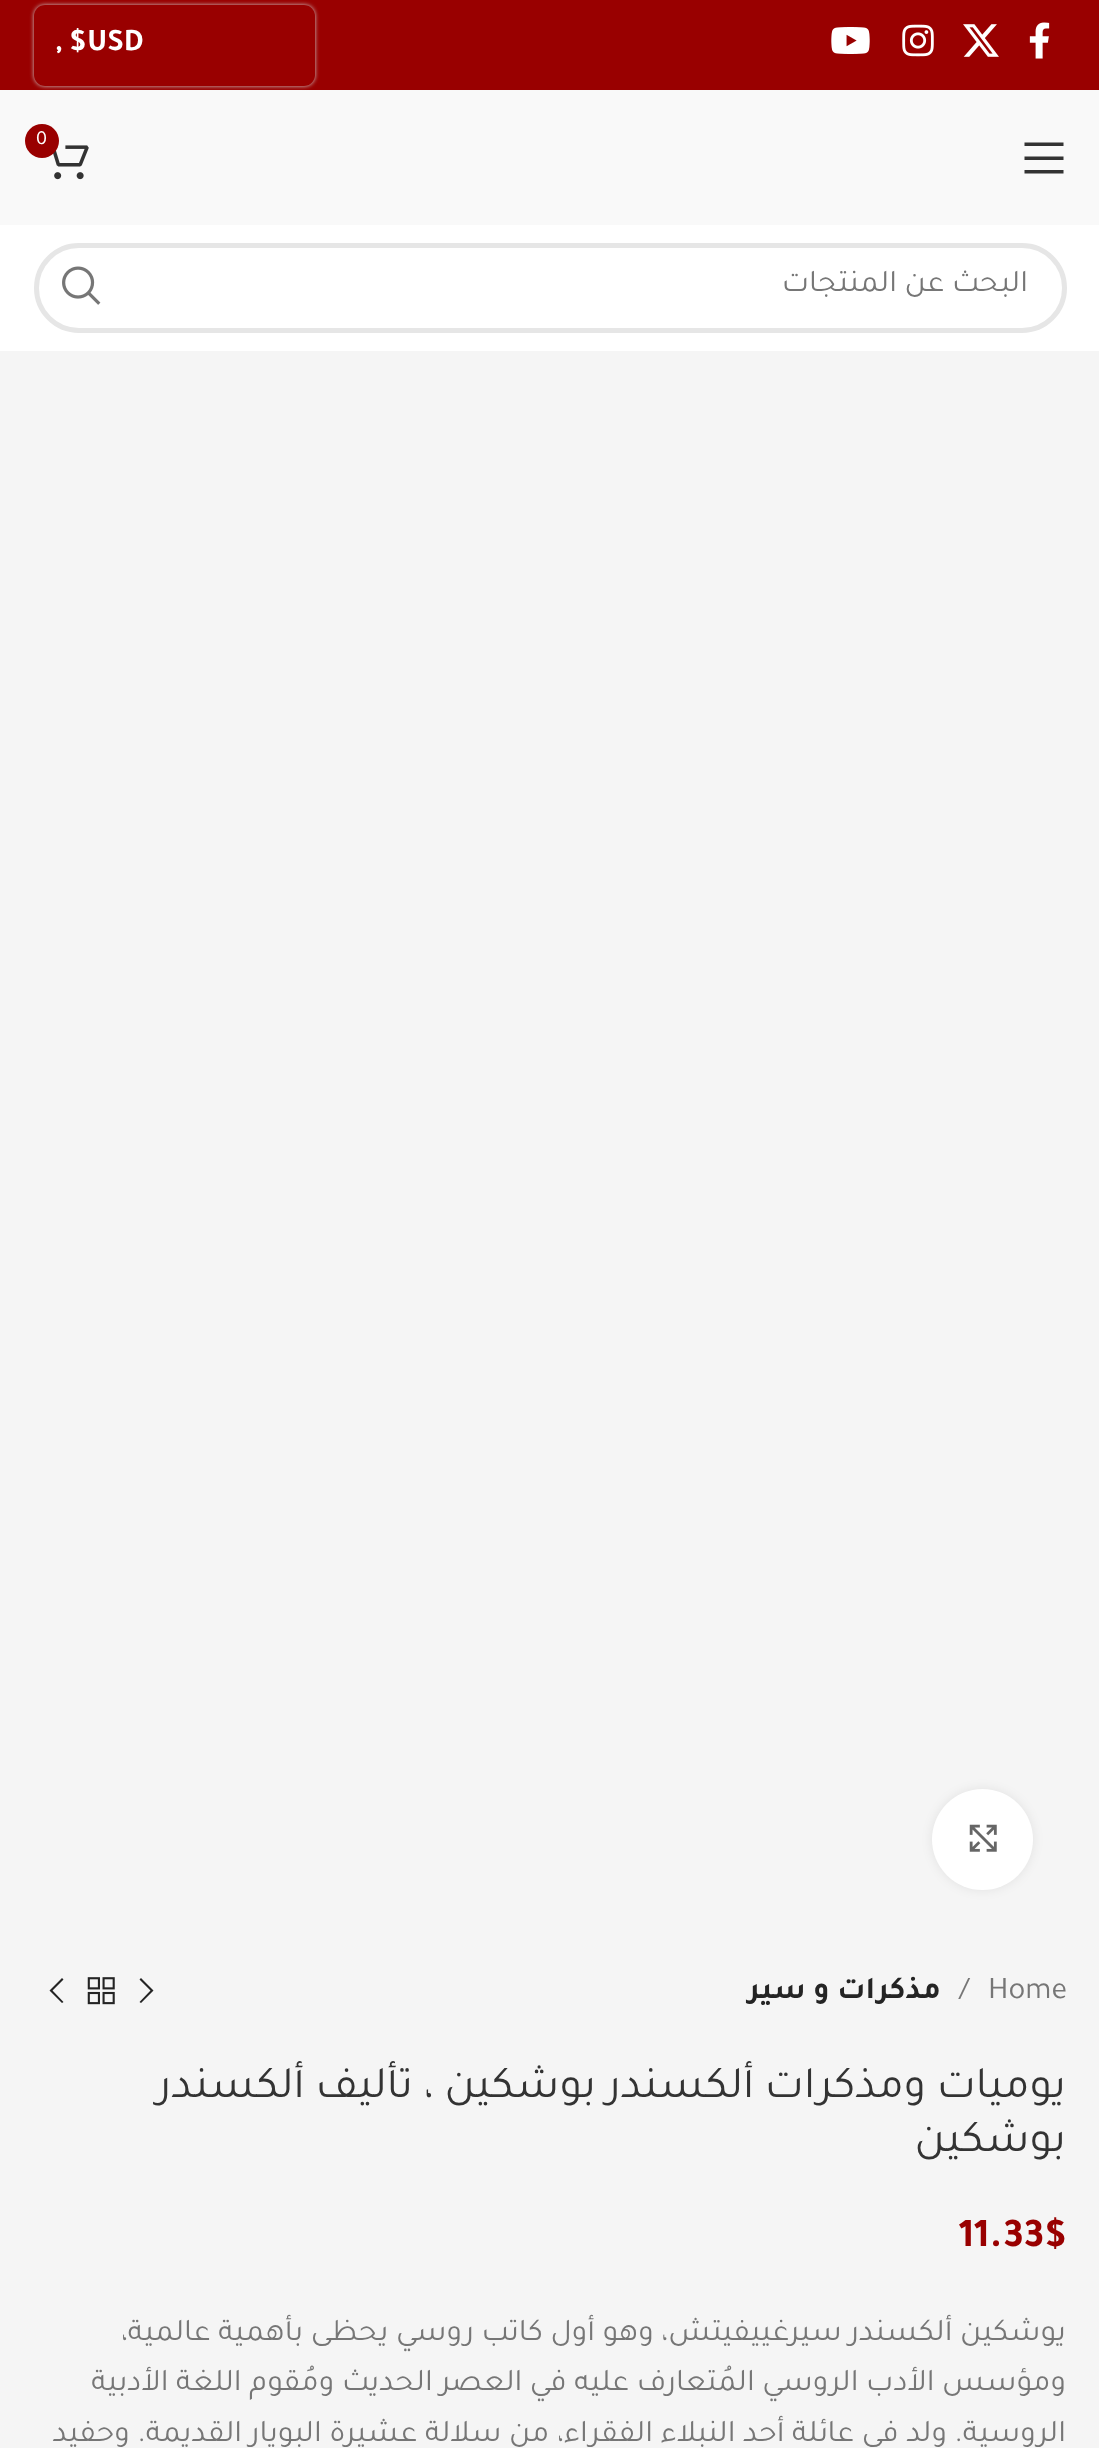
async function draw(canvas) {
  canvas.width = 1099;
  canvas.height = 2448;
  const ctx = canvas.getContext('2d');
  ctx.miterLimit = 4;
  ctx.fontKerning = 'normal';
  function label(s, x, y, font, color) {
    ctx.font = font;
    ctx.fillStyle = color;
    ctx.fillText(s, x, y);
  }
  function rect(x, y, w, h, color) {
    ctx.fillStyle = color;
    ctx.fillRect(x, y, w, h);
  }
  function roundedRect(x, y, w, h, r, color) {
    ctx.fillStyle = color;
    ctx.beginPath();
    ctx.roundRect(x, y, w, h, r);
    ctx.fill();
  }
  async function image(src, x, y, w, h) {
    const img = new Image();
    img.src = src;
    await img.decode();
    ctx.drawImage(img, x, y, w, h);
  }
  let path;

  rect(0, 0, 1099, 2448, '#fff');
  rect(0, 0, 1099, 90, '#900');
  await image('assets/img1.png', 1029, 22, 21, 37);
  await image('assets/img2.png', 963, 24, 36, 33);
  await image('assets/img3.png', 902, 24, 32, 33);
  await image('assets/img4.png', 831, 27, 39, 27);
  rect(0, 90, 1099, 135, '#f9f9f9');
  ctx.fillStyle = '#ccc';
  ctx.filter = 'blur(2px)';
  ctx.beginPath();
  ctx.roundRect(34, 5, 281, 81, 11);
  ctx.fill();
  ctx.filter = 'none';
  roundedRect(34, 5, 281, 81, 11, '#900');
  label(', $USD', 56, 50, 'bold 31.5px Tajawal', '#fff');
  await image('assets/img5.png', 53, 145, 36, 35);
  ctx.fillStyle = '#900';
  ctx.beginPath();
  ctx.arc(42, 141, 17, 0, 2 * Math.PI);
  ctx.fill();
  label('0', 36, 144, '20px Tajawal', '#fff');
  ctx.fillStyle = '#333';
  path = new Path2D('M1024.5 146H1063.5V142.5H1024.5ZM1024.5 160H1063.5V156.5H1024.5ZM1024.5 173.5H1063.5V170H1024.5Z');
  ctx.fill(path);
  ctx.beginPath();
  ctx.roundRect(36.5, 245.5, 1028, 85, 42.5);
  ctx.strokeStyle = '#e6e6e6';
  ctx.lineWidth = 5;
  ctx.stroke();
  ctx.direction = 'rtl';
  label('البحث عن المنتجات', 1028, 291, '31.5px Tajawal', '#767676');
  await image('assets/img6.png', 62, 266, 39, 39);
  rect(0, 351, 1099, 2097, '#f5f5f5');
  ctx.fillStyle = '#00000014';
  ctx.filter = 'blur(5.5px)';
  ctx.beginPath();
  ctx.roundRect(932, 1789, 101, 101, 50.5);
  ctx.fill();
  ctx.filter = 'none';
  ctx.fillStyle = '#fff';
  ctx.beginPath();
  ctx.arc(982.5, 1839.5, 50.5, 0, 2 * Math.PI);
  ctx.fill();
  await image('assets/img7.png', 969, 1824, 28, 28);
  ctx.direction = 'ltr';
  label('Home', 988, 1998, '31.5px Tajawal', '#767676');
  label('/', 959, 1998, '31.5px Tajawal', '#767676');
  ctx.direction = 'rtl';
  label('مذكرات و سير', 941, 1998, 'bold 31.5px Tajawal', '#242424');
  path = new Path2D('M139.5 1979.5L150.5 1990.5L139.5 2002L141 2003L153.5 1990.5L141 1978Z');
  ctx.fill(path);
  await image('assets/img8.png', 87, 1977, 28, 28);
  path = new Path2D('M63.5 1979.5L62 1978L49.5 1990.5L62 2003L63.5 2002L52.5 1990.5Z');
  ctx.fill(path);
  label('يوميات ومذكرات ألكسندر بوشكين ، تأليف ألكسندر', 1066, 2097, '45px Tajawal', '#333');
  label('بوشكين', 1066, 2151, '45px Tajawal', '#333');
  ctx.direction = 'ltr';
  label('11.33$', 959, 2246, 'bold 41px Tajawal', '#900');
  ctx.direction = 'rtl';
  label('يوشكين ألكسندر سيرغييفيتش، وهو أول كاتب روسي يحظى بأهمية عالمية،', 1066, 2340, '31.5px Tajawal', '#767676');
  label('ومؤسس الأدب الروسي المُتعارف عليه في العصر الحديث ومُقوم اللغة الأدبية', 1066, 2390, '31.5px Tajawal', '#767676');
  label('الروسية. ولد في عائلة أحد النبلاء الفقراء، من سلالة عشيرة البويار القديمة. وحفيد', 1066, 2441, '31.5px Tajawal', '#767676');
}

draw(document.querySelector('canvas'));
